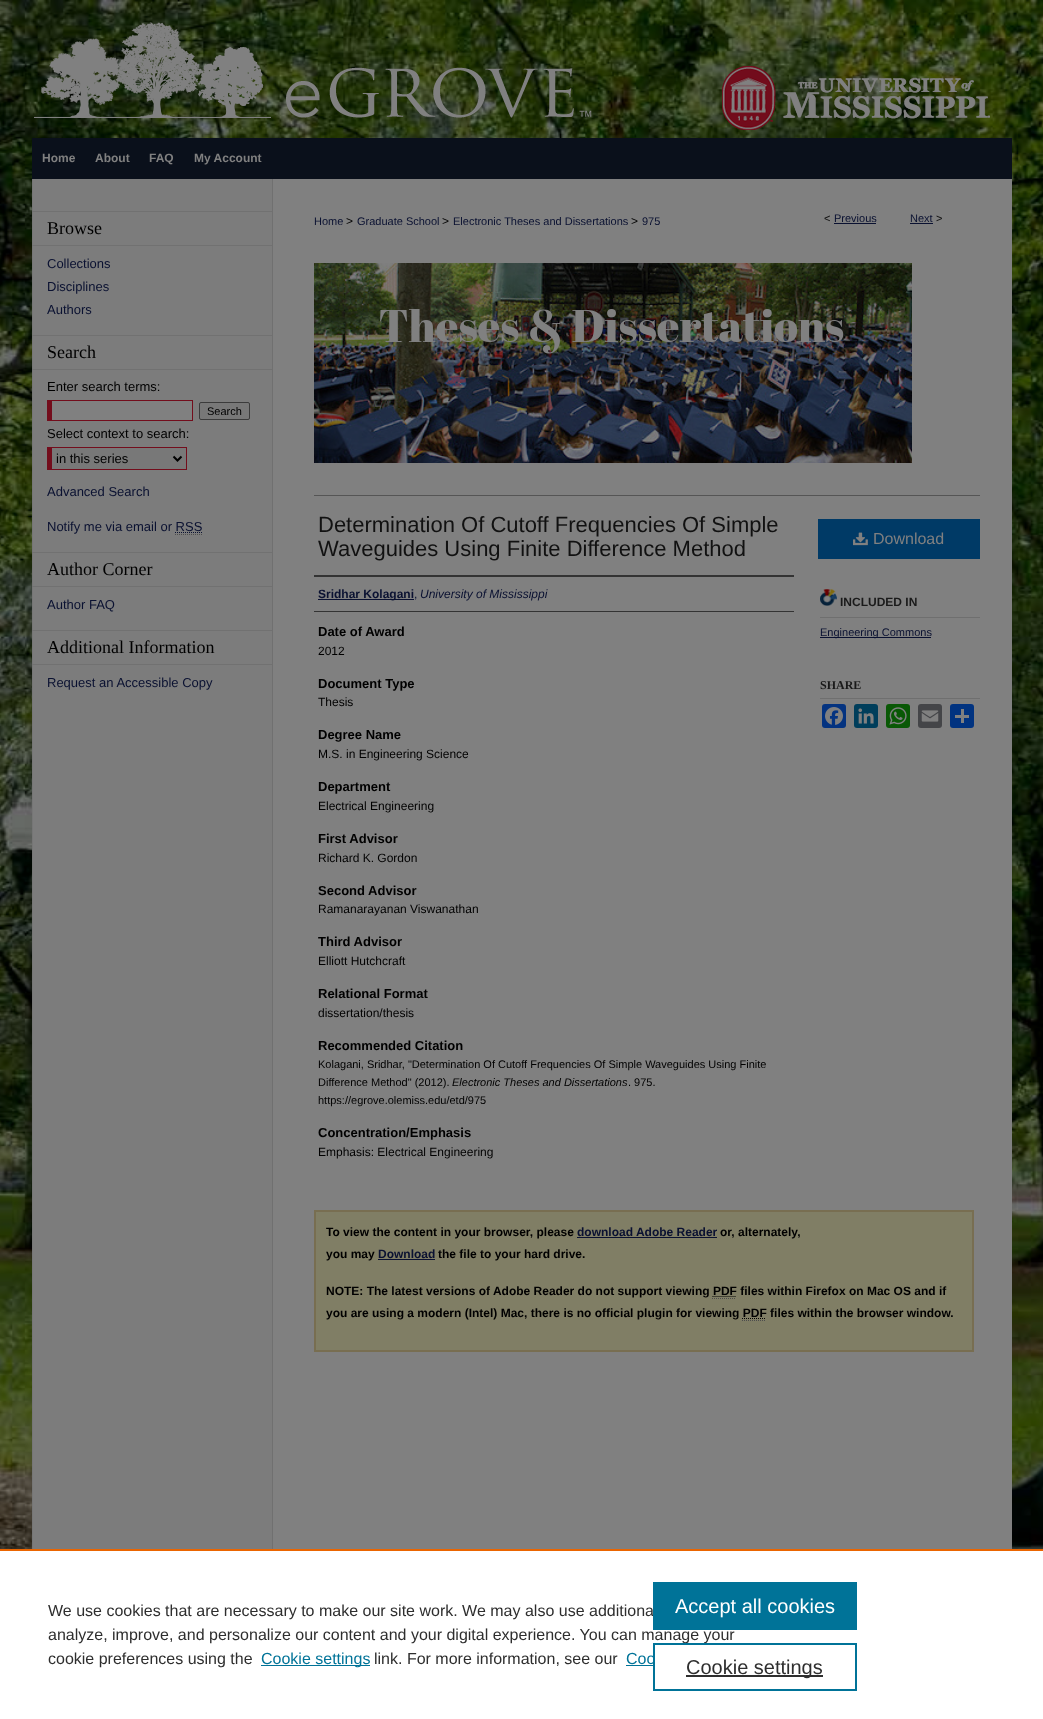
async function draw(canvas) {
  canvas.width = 1043;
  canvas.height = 1719;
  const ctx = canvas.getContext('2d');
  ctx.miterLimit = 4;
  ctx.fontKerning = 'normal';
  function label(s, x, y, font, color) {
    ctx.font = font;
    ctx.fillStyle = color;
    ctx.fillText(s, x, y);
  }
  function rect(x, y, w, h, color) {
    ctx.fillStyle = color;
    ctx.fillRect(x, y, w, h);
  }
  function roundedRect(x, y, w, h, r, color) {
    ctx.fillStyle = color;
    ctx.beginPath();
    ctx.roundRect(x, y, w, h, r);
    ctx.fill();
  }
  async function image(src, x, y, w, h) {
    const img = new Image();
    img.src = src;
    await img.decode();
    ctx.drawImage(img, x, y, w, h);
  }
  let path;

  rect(0, 0, 1043, 1719, '#fff');
  await image('assets/img1.png', 0, 0, 1043, 1549);
  await image('assets/img2.png', 34, 22, 956, 108);
  await image('assets/img3.png', 722, 66, 268, 64);
  rect(32, 138, 980, 41, '#0a101b');
  label('Home', 42, 162, 'bold 12px Liberation Sans', '#808080');
  label('About', 95, 162, 'bold 12px Liberation Sans', '#808080');
  label('FAQ', 149, 162, 'bold 12px Liberation Sans', '#808080');
  label('My Account', 194, 162, 'bold 12px Liberation Sans', '#808080');
  await image('assets/img4.png', 32, 179, 250, 1370);
  rect(32, 211, 240, 1, '#717171');
  rect(32, 245, 240, 1, '#717171');
  label('Browse', 47, 234, '18px Liberation Serif', '#000');
  label('Collections', 47, 268, '13px Liberation Sans', '#0a1131');
  label('Disciplines', 47, 291, '13px Liberation Sans', '#0a1131');
  label('Authors', 47, 314, '13px Liberation Sans', '#0a1131');
  rect(32, 335, 240, 1, '#717171');
  rect(32, 369, 240, 1, '#717171');
  label('Search', 47, 358, '18px Liberation Serif', '#000');
  label('Enter search terms:', 47, 391, '13px Liberation Sans', '#000');
  rect(52, 401, 140, 19, '#808080');
  rect(47, 400, 146, 1, '#730d1c');
  rect(192, 400, 1, 21, '#730d1c');
  rect(47, 420, 146, 1, '#730d1c');
  rect(47, 400, 5, 21, '#730d1c');
  ctx.fillStyle = '#787878';
  ctx.beginPath();
  ctx.roundRect(199.5, 402.5, 50, 17, 1.5);
  ctx.fill();
  ctx.strokeStyle = '#3b3b3b';
  ctx.stroke();
  label('Search', 207, 415, '11px Liberation Sans', '#000');
  label('Select context to search:', 47, 438, '13px Liberation Sans', '#000');
  rect(52, 448, 134, 21, '#787878');
  rect(47, 447, 140, 1, '#730d1c');
  rect(186, 447, 1, 23, '#730d1c');
  rect(47, 469, 140, 1, '#730d1c');
  rect(47, 447, 5, 23, '#730d1c');
  path = new Path2D('M173.5 456.5L177.5 460.5L181.5 456.5');
  ctx.strokeStyle = '#000';
  ctx.lineWidth = 2;
  ctx.stroke(path);
  label('in this series', 56, 463, '13px Liberation Sans', '#000');
  label('Advanced Search', 47, 496, '13px Liberation Sans', '#0a1131');
  label('Notify me via email or RSS', 47, 531, '13px Liberation Sans', '#0a1131');
  path = new Path2D('M175 532.5H202');
  ctx.strokeStyle = '#0a1131';
  ctx.lineWidth = 1;
  ctx.setLineDash([1, 1]);
  ctx.stroke(path);
  path = new Path2D('M175 534.5H202');
  ctx.strokeStyle = '#4d4d4d';
  ctx.stroke(path);
  rect(32, 552, 240, 1, '#717171');
  rect(32, 586, 240, 1, '#717171');
  label('Author Corner', 47, 575, '18px Liberation Serif', '#000');
  label('Author FAQ', 47, 609, '13px Liberation Sans', '#0a1131');
  rect(32, 630, 240, 1, '#717171');
  rect(32, 664, 240, 1, '#717171');
  label('Additional Information', 47, 653, '18px Liberation Serif', '#000');
  label('Request an Accessible Copy', 47, 687, '13px Liberation Sans', '#0a1131');
  rect(282, 179, 730, 1370, '#808080');
  label('Home', 314, 225, '11px Liberation Sans', '#0a1131');
  label('>', 346, 225, '12px Liberation Sans', '#000');
  label('Graduate School', 357, 225, '11px Liberation Sans', '#0a1131');
  label('>', 442, 225, '12px Liberation Sans', '#000');
  label('Electronic Theses and Dissertations', 453, 225, '11px Liberation Sans', '#0a1131');
  label('>', 631, 225, '12px Liberation Sans', '#000');
  label('975', 642, 225, '11px Liberation Sans', '#0a1131');
  label('<', 824, 222, '11px Liberation Sans', '#111');
  label('Previous', 834, 222, '11px Liberation Sans', '#0a1131');
  rect(834, 223, 42, 1, '#0a1131');
  label('Next', 910, 222, '11px Liberation Sans', '#0a1131');
  rect(910, 223, 23, 1, '#0a1131');
  label('>', 936, 222, '11px Liberation Sans', '#111');
  await image('assets/img5.png', 314, 263, 598, 200);
  rect(314, 495, 666, 1, '#555');
  label('Determination Of Cutoff Frequencies Of Simple', 318, 532, '22px Liberation Sans', '#111');
  label('Waveguides Using Finite Difference Method', 318, 556, '22px Liberation Sans', '#111');
  rect(314, 575, 480, 2, '#333');
  rect(314, 611, 480, 1, '#333');
  rect(318, 599, 96, 1, '#0a1131');
  label('Sridhar Kolagani', 318, 598, 'bold 12px Liberation Sans', '#0a1131');
  label(',', 414, 598, '12px Liberation Sans', '#0a1131');
  label('University of Mississippi', 420, 598, 'italic 12px Liberation Sans', '#0a1131');
  label('Date of Award', 318, 636, 'bold 13px Liberation Sans', '#000');
  label('2012', 318, 655, '12px Liberation Sans', '#000');
  label('Document Type', 318, 688, 'bold 13px Liberation Sans', '#000');
  label('Thesis', 318, 706, '12px Liberation Sans', '#000');
  label('Degree Name', 318, 739, 'bold 13px Liberation Sans', '#000');
  label('M.S. in Engineering Science', 318, 758, '12px Liberation Sans', '#000');
  label('Department', 318, 791, 'bold 13px Liberation Sans', '#000');
  label('Electrical Engineering', 318, 810, '12px Liberation Sans', '#000');
  label('First Advisor', 318, 843, 'bold 13px Liberation Sans', '#000');
  label('Richard K. Gordon', 318, 862, '12px Liberation Sans', '#000');
  label('Second Advisor', 318, 895, 'bold 13px Liberation Sans', '#000');
  label('Ramanarayanan Viswanathan', 318, 913, '12px Liberation Sans', '#000');
  label('Third Advisor', 318, 946, 'bold 13px Liberation Sans', '#000');
  label('Elliott Hutchcraft', 318, 965, '12px Liberation Sans', '#000');
  label('Relational Format', 318, 998, 'bold 13px Liberation Sans', '#000');
  label('dissertation/thesis', 318, 1017, '12px Liberation Sans', '#000');
  label('Recommended Citation', 318, 1050, 'bold 13px Liberation Sans', '#000');
  label('Kolagani, Sridhar, "Determination Of Cutoff Frequencies Of Simple Waveguides Using Finite', 318, 1068, '11px Liberation Sans', '#000');
  label('Difference Method" (2012).', 318, 1086, '11px Liberation Sans', '#000');
  label('Electronic Theses and Dissertations', 452, 1086, 'italic 11px Liberation Sans', '#000');
  label('. 975.', 628, 1086, '11px Liberation Sans', '#000');
  label('https://egrove.olemiss.edu/etd/975', 318, 1104, '11px Liberation Sans', '#000');
  label('Concentration/Emphasis', 318, 1137, 'bold 13px Liberation Sans', '#000');
  label('Emphasis: Electrical Engineering', 318, 1156, '12px Liberation Sans', '#000');
  rect(818, 519, 162, 40, '#003a66');
  await image('assets/img6.png', 853, 532, 15, 14);
  label('Download', 873, 544, '16px Liberation Sans', '#808080');
  await image('assets/img7.png', 820, 589, 17, 17);
  rect(820, 617, 160, 1, '#6f6f6f');
  label('INCLUDED IN', 840, 606, 'bold 12px Liberation Sans', '#1a1a1a');
  rect(820, 637, 111, 1, '#0a1131');
  label('Engineering Commons', 820, 636, '11px Liberation Sans', '#0a1131');
  rect(820, 698, 160, 1, '#6f6f6f');
  label('SHARE', 820, 689, 'bold 12px Liberation Serif', '#1a1a1a');
  roundedRect(822, 704, 24, 24, 3, '#043380');
  await image('assets/img8.png', 825, 707, 18, 18);
  roundedRect(854, 704, 24, 24, 3, '#003e5b');
  await image('assets/img9.png', 858, 708, 16, 16);
  roundedRect(886, 704, 24, 24, 3, '#095805');
  await image('assets/img10.png', 889, 707, 18, 18);
  roundedRect(918, 704, 24, 24, 3, '#444548');
  await image('assets/img11.png', 921, 710, 18, 12);
  roundedRect(950, 704, 24, 24, 3, '#013380');
  rect(961, 709, 3, 14, '#808080');
  rect(955, 715, 14, 3, '#808080');
  ctx.fillStyle = '#807e65';
  ctx.beginPath();
  ctx.rect(315, 1211, 658, 140);
  ctx.fill();
  ctx.strokeStyle = '#786e51';
  ctx.lineWidth = 2;
  ctx.setLineDash([]);
  ctx.stroke();
  label('To view the content in your browser, please', 326, 1236, 'bold 12px Liberation Sans', '#000');
  label('download Adobe Reader', 577, 1236, 'bold 12px Liberation Sans', '#0a1131');
  rect(577, 1237, 140, 1, '#0a1131');
  label('or, alternately,', 720, 1236, 'bold 12px Liberation Sans', '#000');
  label('you may', 326, 1258, 'bold 12px Liberation Sans', '#000');
  label('Download', 378, 1258, 'bold 12px Liberation Sans', '#0a1131');
  rect(378, 1259, 57, 1, '#0a1131');
  label('the file to your hard drive.', 438, 1258, 'bold 12px Liberation Sans', '#000');
  label('NOTE: The latest versions of Adobe Reader do not support viewing PDF files within Firefox on Mac OS and if', 326, 1295, 'bold 12px Liberation Sans', '#000');
  path = new Path2D('M712.5 1296.5H736.5');
  ctx.strokeStyle = '#000';
  ctx.lineWidth = 1;
  ctx.setLineDash([1, 1]);
  ctx.stroke(path);
  path = new Path2D('M712 1298.5H736');
  ctx.strokeStyle = '#4d4d4d';
  ctx.stroke(path);
  label('you are using a modern (Intel) Mac, there is no official plugin for viewing PDF files within the browser window.', 326, 1317, 'bold 12px Liberation Sans', '#000');
  path = new Path2D('M742 1318.5H766');
  ctx.strokeStyle = '#000';
  ctx.stroke(path);
  path = new Path2D('M742 1320.5H766');
  ctx.strokeStyle = '#4d4d4d';
  ctx.stroke(path);
  rect(0, 1549, 1043, 2, '#eb6500');
  label('We use cookies that are necessary to make our site work. We may also use additiona', 48, 1616, '16px Liberation Sans', '#2e2e2e');
  label('analyze, improve, and personalize our content and your digital experience. You can manage your', 48, 1640, '16px Liberation Sans', '#2e2e2e');
  label('cookie preferences using the', 48, 1664, '16px Liberation Sans', '#2e2e2e');
  rect(261, 1665, 109, 1, '#007398');
  label('Cookie settings', 261, 1664, '16px Liberation Sans', '#007398');
  label('link. For more information, see our', 374, 1664, '16px Liberation Sans', '#2e2e2e');
  label('Coo', 626, 1664, '16px Liberation Sans', '#007398');
  rect(626, 1665, 27, 1, '#007398');
  rect(653, 1582, 204, 48, '#007398');
  label('Accept all cookies', 675, 1613, '20px Liberation Sans', '#fff');
  ctx.strokeStyle = '#007398';
  ctx.lineWidth = 2;
  ctx.setLineDash([]);
  ctx.strokeRect(654, 1644, 202, 46);
  rect(686, 1675, 137, 2, '#2e2e2e');
  label('Cookie settings', 686, 1674, '20px Liberation Sans', '#2e2e2e');
}

draw(document.querySelector('canvas'));
